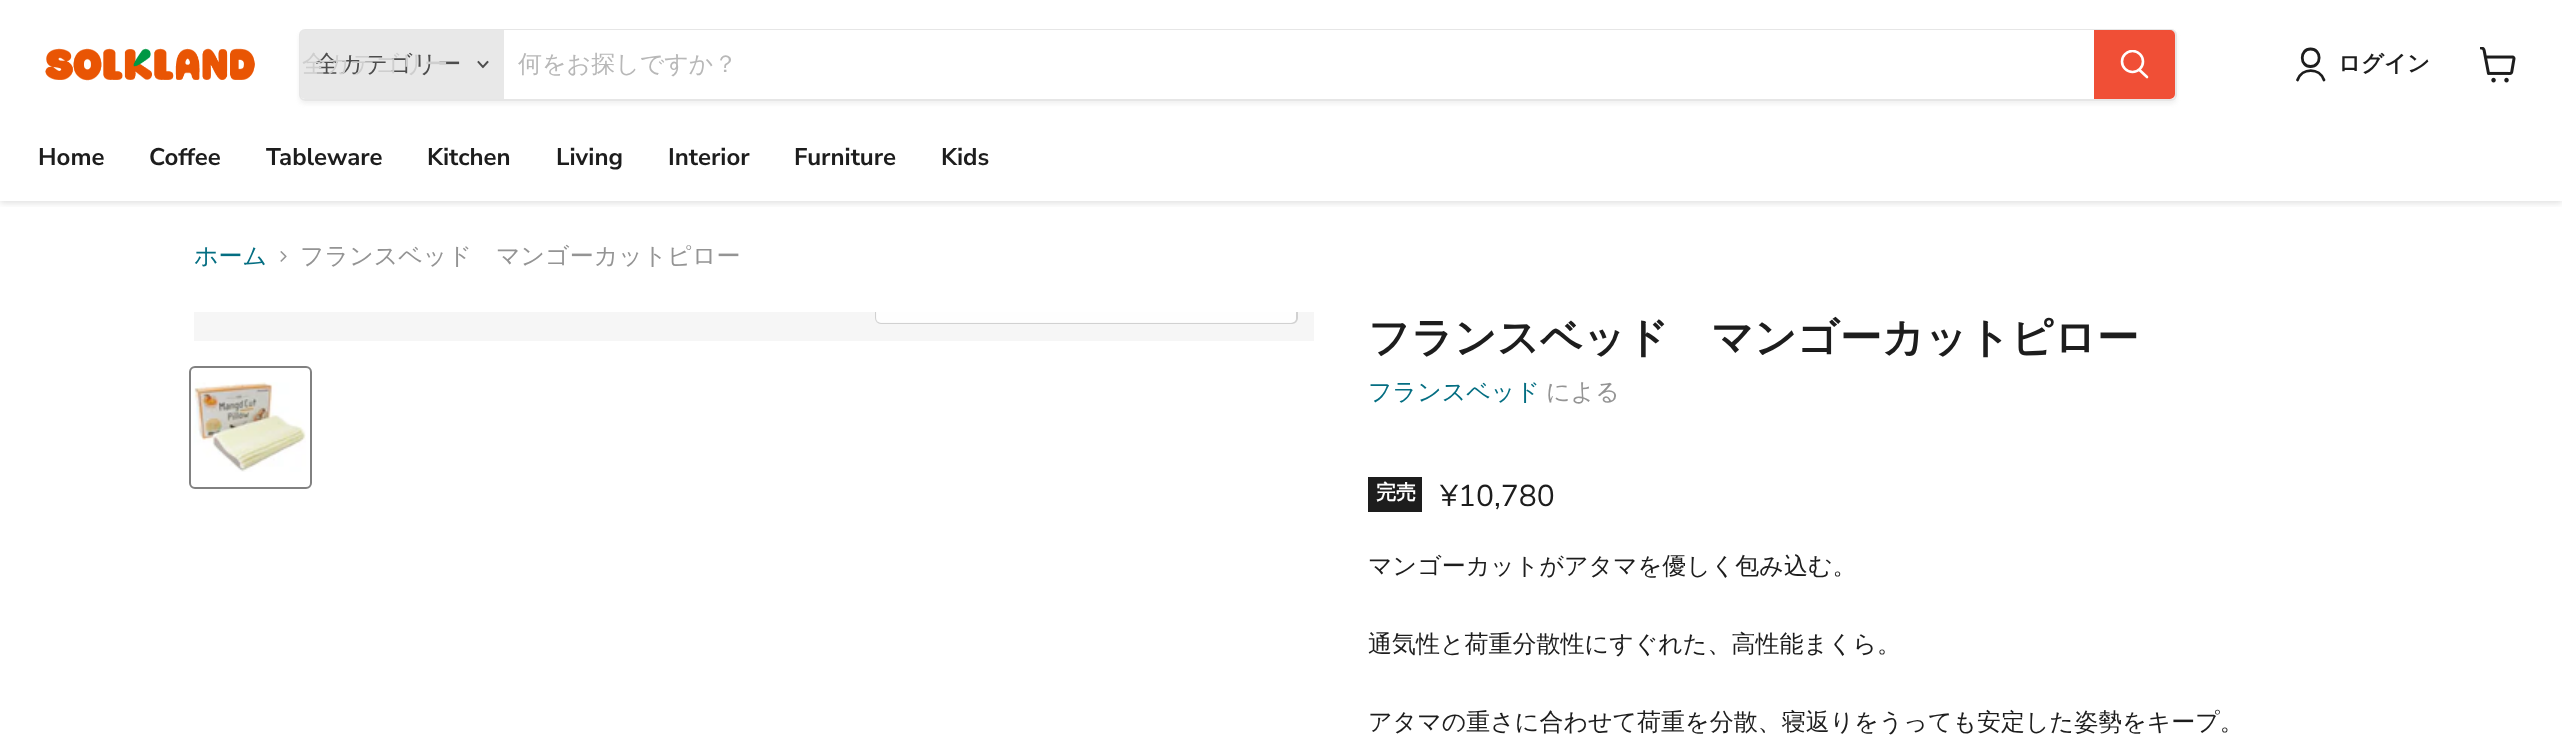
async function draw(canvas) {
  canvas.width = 2562;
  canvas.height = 750;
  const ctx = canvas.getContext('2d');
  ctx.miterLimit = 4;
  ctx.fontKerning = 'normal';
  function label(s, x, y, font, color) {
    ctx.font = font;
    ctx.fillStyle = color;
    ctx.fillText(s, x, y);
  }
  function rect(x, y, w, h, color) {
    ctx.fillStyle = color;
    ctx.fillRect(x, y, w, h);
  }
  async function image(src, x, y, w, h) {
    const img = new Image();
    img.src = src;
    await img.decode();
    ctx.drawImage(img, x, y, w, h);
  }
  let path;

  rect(0, 0, 2562, 750, '#fff');
  ctx.save();
  ctx.beginPath();
  ctx.rect(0, 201, 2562, 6);
  ctx.clip();
  ctx.fillStyle = '#80808040';
  ctx.filter = 'blur(3px)';
  ctx.beginPath();
  ctx.rect(0, 2, 2562, 201);
  ctx.fill();
  ctx.filter = 'none';
  ctx.restore();
  await image('assets/img1.png', 45, 48, 210, 33);
  ctx.save();
  path = new Path2D('M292 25H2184V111H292ZM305 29H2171C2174.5 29 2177 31.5 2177 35V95C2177 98.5 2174.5 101 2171 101H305C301.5 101 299 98.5 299 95V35C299 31.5 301.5 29 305 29Z');
  ctx.clip(path, 'evenodd');
  ctx.fillStyle = '#8080801c';
  ctx.filter = 'blur(2px)';
  ctx.beginPath();
  ctx.roundRect(299, 32, 1878, 72, 6);
  ctx.fill();
  ctx.filter = 'none';
  ctx.restore();
  ctx.beginPath();
  ctx.roundRect(300, 30, 1876, 70, 5);
  ctx.strokeStyle = '#80808033';
  ctx.lineWidth = 2;
  ctx.stroke();
  ctx.fillStyle = '#e8e8e8';
  ctx.beginPath();
  ctx.roundRect(300, 30, 204, 69, [5, 0, 0, 5]);
  ctx.fill();
  label('全カテゴリー', 315, 72, '500 24px WenQuanYi Zen Hei', '#4d4d4d');
  label('全カテゴリー', 302, 72, '500 24px WenQuanYi Zen Hei', '#cecece');
  path = new Path2D('M483 67L487.5 62M483 67L478.5 62');
  ctx.strokeStyle = '#4d4d4d';
  ctx.lineWidth = 1.9;
  ctx.lineCap = 'square';
  ctx.stroke(path);
  rect(504, 30, 1590, 1, '#fff');
  label('何をお探しですか？', 518, 72, '500 24px WenQuanYi Zen Hei', '#b8b8b8');
  ctx.fillStyle = '#f04f36';
  ctx.beginPath();
  ctx.roundRect(2095, 31, 79, 67, [0, 4, 4, 0]);
  ctx.fill();
  ctx.strokeStyle = '#f04f36';
  ctx.lineWidth = 2;
  ctx.stroke();
  path = new Path2D('M2147 77L2139.5 70');
  ctx.strokeStyle = '#fff';
  ctx.lineWidth = 2.6;
  ctx.lineCap = 'round';
  ctx.stroke(path);
  ctx.save();
  ctx.beginPath();
  ctx.rect(2120, 50, 30, 31);
  ctx.clip();
  ctx.beginPath();
  ctx.arc(2132.5, 61.5, 10.5, 0, 2 * Math.PI);
  ctx.stroke();
  ctx.restore();
  path = new Path2D('M2310.5 66.5C2322 66.5 2322 49 2310.5 49C2299.5 49 2299.5 66.5 2310.5 66.5ZM2324 80C2319.5 67.5 2302 67.5 2297.5 80');
  ctx.strokeStyle = '#1d1d1d';
  ctx.lineWidth = 2.8;
  ctx.lineJoin = 'round';
  ctx.stroke(path);
  label('ログイン', 2338, 71, 'bold 22.5px WenQuanYi Zen Hei', '#1d1d1d');
  await image('assets/img2.png', 2480, 47, 36, 36);
  label('Home', 38, 165, 'bold 24px Nunito Sans', '#1d1d1d');
  label('Coffee', 149, 165, 'bold 24px Nunito Sans', '#1d1d1d');
  label('Tableware', 266, 165, 'bold 24px Nunito Sans', '#1d1d1d');
  label('Kitchen', 427, 165, 'bold 24px Nunito Sans', '#1d1d1d');
  label('Living', 556, 165, 'bold 24px Nunito Sans', '#1d1d1d');
  label('Interior', 668, 165, 'bold 24px Nunito Sans', '#1d1d1d');
  label('Furniture', 794, 165, 'bold 24px Nunito Sans', '#1d1d1d');
  label('Kids', 941, 165, 'bold 24px Nunito Sans', '#1d1d1d');
  label('ホーム', 194, 264, '500 24px WenQuanYi Zen Hei', '#046e82');
  await image('assets/img3.png', 280, 251, 7, 11);
  label('フランスベッド　マンゴーカットピロー', 300, 264, '500 24px WenQuanYi Zen Hei', '#949494');
  rect(194, 312, 1120, 29, '#f6f6f6');
  ctx.save();
  ctx.beginPath();
  ctx.rect(194, 312, 1120, 29);
  ctx.clip();
  ctx.beginPath();
  ctx.roundRect(876, 280, 421, 43, 5);
  ctx.strokeStyle = '#d1d1d1';
  ctx.lineWidth = 2;
  ctx.lineJoin = 'miter';
  ctx.stroke();
  ctx.restore();
  ctx.fillStyle = '#ffffffe6';
  ctx.beginPath();
  ctx.roundRect(876, 312, 420, 11, [0, 0, 5, 5]);
  ctx.fill();
  ctx.beginPath();
  ctx.roundRect(190, 367, 121, 121, 5);
  ctx.strokeStyle = '#818181';
  ctx.lineWidth = 2;
  ctx.lineJoin = 'miter';
  ctx.stroke();
  await image('assets/img4.png', 193, 382, 113, 90);
  label('フランスベッド　マンゴーカットピロー', 1368, 352, 'bold 42px WenQuanYi Zen Hei', '#1d1d1d');
  label('フランスベッド', 1368, 400, '500 24px WenQuanYi Zen Hei', '#046e82');
  label('による', 1546, 400, '500 24px WenQuanYi Zen Hei', '#949494');
  rect(1368, 477, 54, 35, '#1d1d1d');
  label('完売', 1376, 499, 'bold 20px WenQuanYi Zen Hei', '#fff');
  label('¥10,780', 1440, 506, '30px Nunito Sans', '#1d1d1d');
  label('マンゴーカットがアタマを優しく包み込む。', 1368, 574, '500 24px WenQuanYi Zen Hei', '#1d1d1d');
  label('通気性と荷重分散性にすぐれた、高性能まくら。', 1368, 652, '500 24px WenQuanYi Zen Hei', '#1d1d1d');
  label('アタマの重さに合わせて荷重を分散、寝返りをうっても安定した姿勢をキープ。', 1368, 730, '500 24px WenQuanYi Zen Hei', '#1d1d1d');
}

draw(document.querySelector('canvas'));
